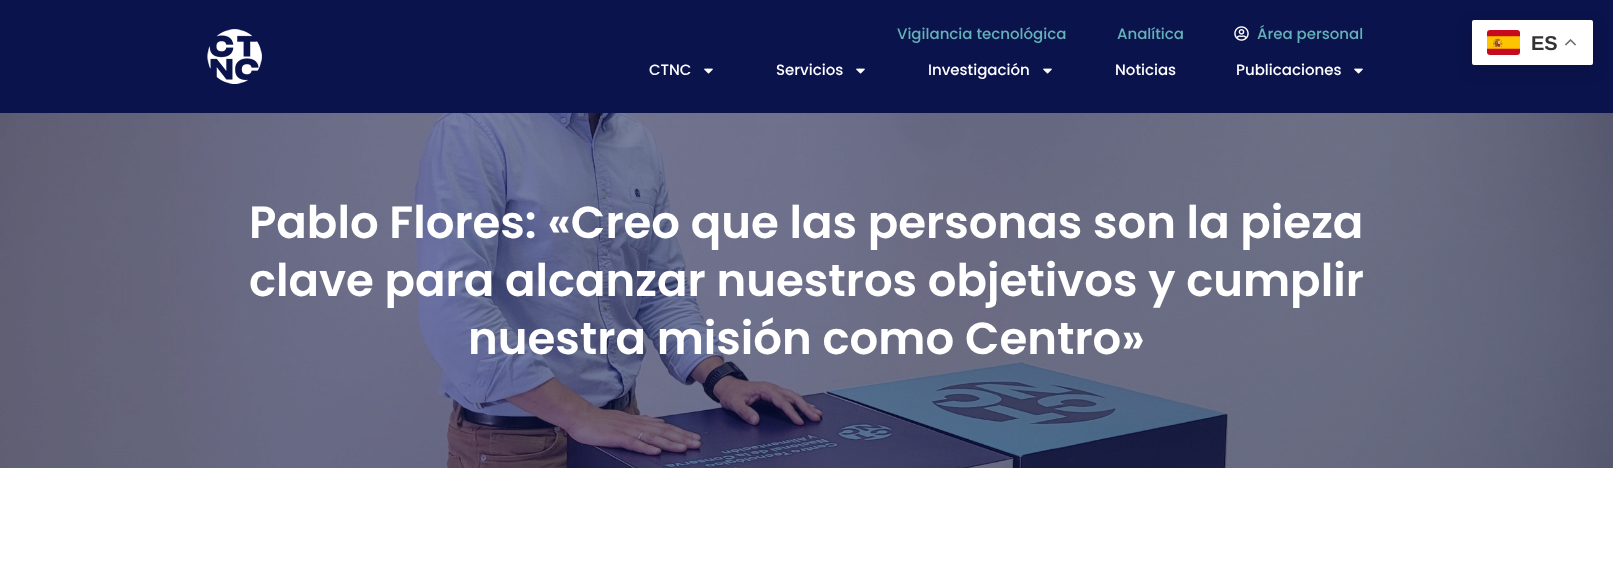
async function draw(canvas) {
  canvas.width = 1613;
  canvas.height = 579;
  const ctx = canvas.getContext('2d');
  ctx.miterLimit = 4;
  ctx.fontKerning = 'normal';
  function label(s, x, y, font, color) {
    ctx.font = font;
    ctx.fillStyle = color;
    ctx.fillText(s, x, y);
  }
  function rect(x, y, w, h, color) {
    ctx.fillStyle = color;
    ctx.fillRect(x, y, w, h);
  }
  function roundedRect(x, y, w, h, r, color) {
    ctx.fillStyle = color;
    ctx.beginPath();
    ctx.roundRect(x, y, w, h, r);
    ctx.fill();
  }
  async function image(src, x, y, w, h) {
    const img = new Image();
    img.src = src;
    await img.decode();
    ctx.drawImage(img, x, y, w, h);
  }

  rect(0, 0, 1613, 579, '#fff');
  rect(0, 0, 1613, 113, '#0b134c');
  await image('assets/img1.png', 207, 29, 55, 55);
  label('Vigilancia tecnológica', 897, 39, '500 15px Poppins', '#64b1b8');
  label('Analítica', 1117, 39, '500 15px Poppins', '#64b1b8');
  await image('assets/img2.png', 1234, 26, 15, 15);
  label('Área personal', 1257, 39, '500 15px Poppins', '#64b1b8');
  label('CTNC', 649, 75, '500 15px Poppins', '#fff');
  await image('assets/img3.png', 704, 68, 9, 6);
  label('Servicios', 776, 75, '500 15px Poppins', '#fff');
  await image('assets/img3.png', 856, 68, 9, 6);
  label('Investigación', 928, 75, '500 15px Poppins', '#fff');
  await image('assets/img3.png', 1043, 68, 9, 6);
  label('Noticias', 1115, 75, '500 15px Poppins', '#fff');
  label('Publicaciones', 1236, 75, '500 15px Poppins', '#fff');
  await image('assets/img3.png', 1354, 68, 9, 6);
  ctx.fillStyle = '#00000026';
  ctx.filter = 'blur(7.5px)';
  ctx.beginPath();
  ctx.roundRect(1472, 25, 121, 45, 2);
  ctx.fill();
  ctx.filter = 'none';
  roundedRect(1472, 20, 121, 45, 2, '#fff');
  await image('assets/img4.png', 1487, 30, 33, 25);
  label('ES', 1531, 50, 'bold 20px Liberation Sans', '#333');
  await image('assets/img5.png', 1565, 39, 11, 7);
  await image('assets/img6.png', 0, 113, 1613, 355);
  label('Pablo Flores: «Creo que las personas son la pieza', 249, 238, '600 45px Poppins', '#fff');
  label('clave para alcanzar nuestros objetivos y cumplir', 249, 296, '600 45px Poppins', '#fff');
  label('nuestra misión como Centro»', 468, 354, '600 45px Poppins', '#fff');
}

draw(document.querySelector('canvas'));
